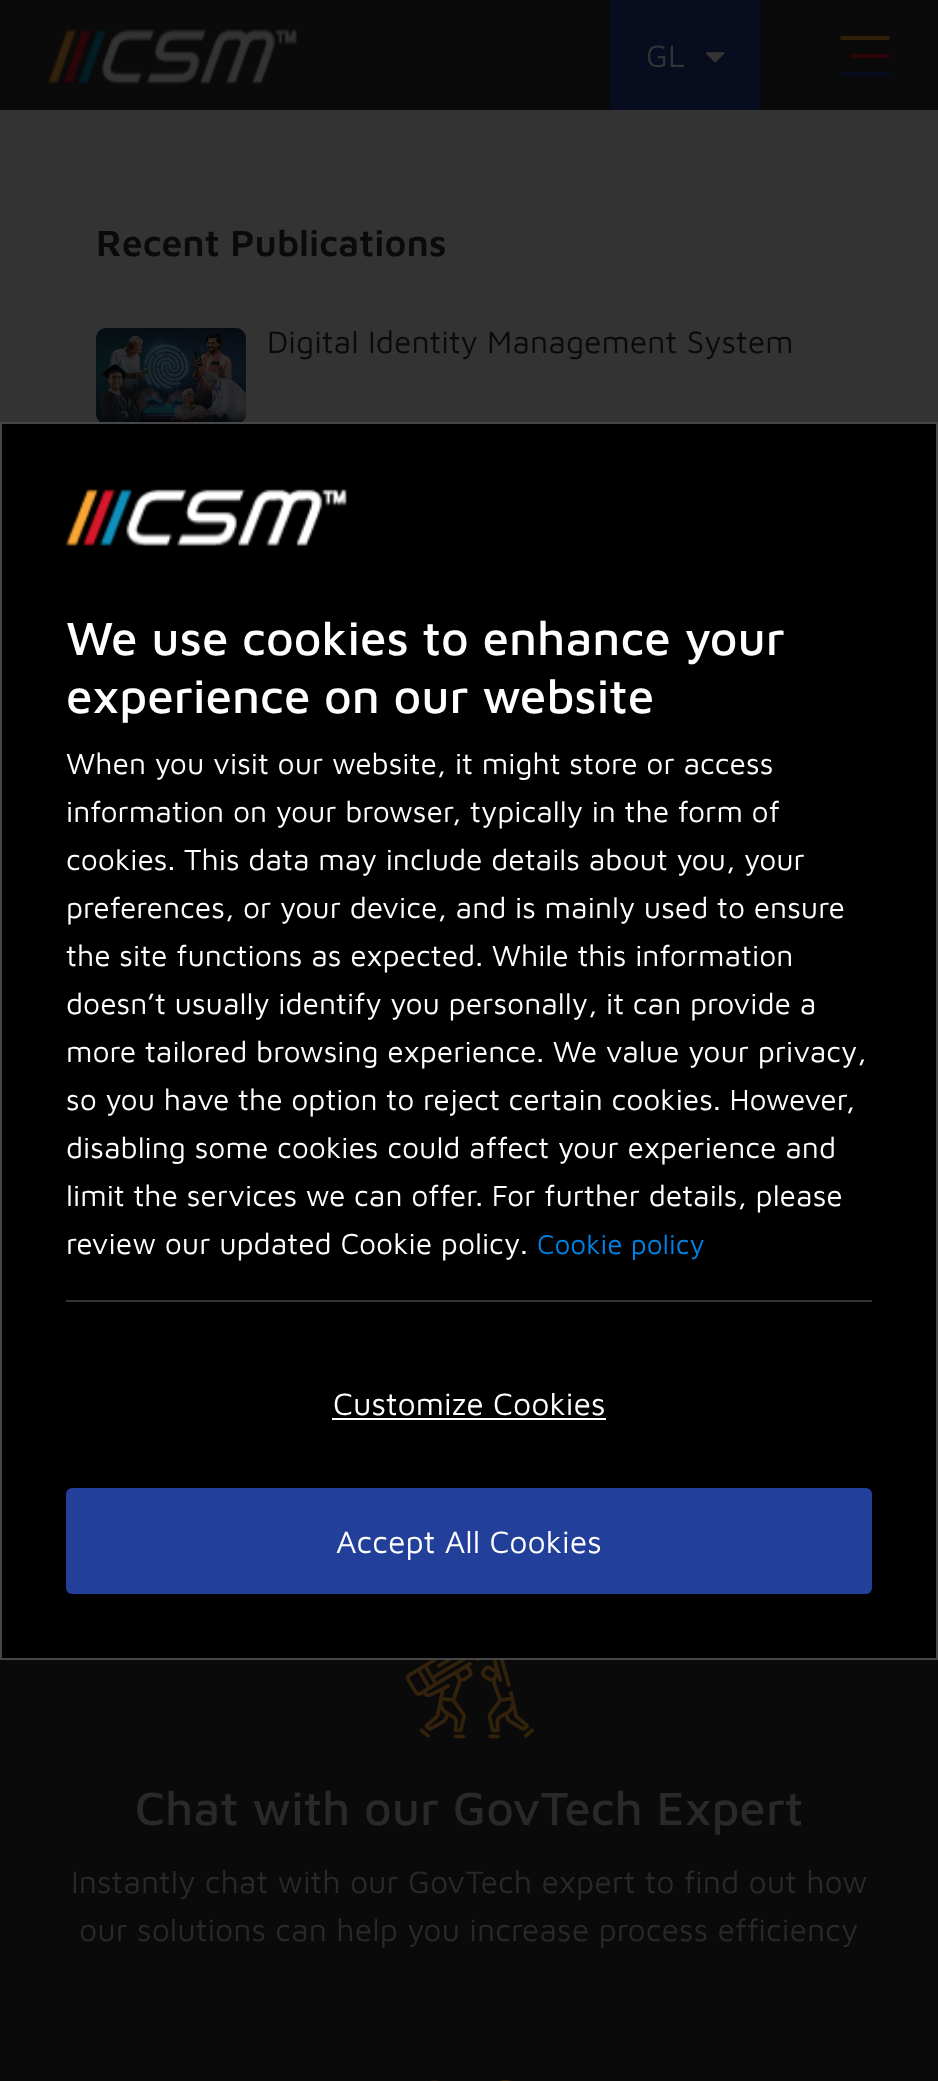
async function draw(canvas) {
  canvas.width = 938;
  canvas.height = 2081;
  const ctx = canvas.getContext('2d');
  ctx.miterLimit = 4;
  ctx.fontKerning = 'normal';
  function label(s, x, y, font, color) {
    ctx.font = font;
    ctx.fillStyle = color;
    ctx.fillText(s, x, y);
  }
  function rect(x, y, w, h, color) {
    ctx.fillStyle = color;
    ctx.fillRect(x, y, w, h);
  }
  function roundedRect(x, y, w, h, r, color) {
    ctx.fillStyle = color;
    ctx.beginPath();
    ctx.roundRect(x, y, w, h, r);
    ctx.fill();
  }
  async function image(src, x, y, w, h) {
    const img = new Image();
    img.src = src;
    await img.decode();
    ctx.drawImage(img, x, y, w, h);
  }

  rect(0, 0, 938, 2081, '#333');
  rect(0, 0, 938, 110, '#0a0a0a');
  await image('assets/img1.png', 48, 29, 249, 55);
  rect(610, 0, 150, 110, '#070d1f');
  label('GL', 646, 67, '32px Maven Pro', '#333');
  await image('assets/img2.png', 706, 52, 19, 11);
  roundedRect(840, 36, 50, 4, 2, '#311e06');
  roundedRect(850, 54, 40, 4, 2, '#2b0508');
  roundedRect(840, 72, 50, 4, 2, '#070d1f');
  label('Recent Publications', 96, 256, '600 37.5px Maven Pro', '#0a0a0a');
  await image('assets/img3.png', 96, 328, 150, 94);
  label('Digital Identity Management System', 267, 353, '32px Maven Pro', '#0a0a0a');
  ctx.fillStyle = '#000';
  ctx.beginPath();
  ctx.rect(1, 423, 936, 1236);
  ctx.fill();
  ctx.strokeStyle = '#464646';
  ctx.lineWidth = 2;
  ctx.stroke();
  await image('assets/img4.png', 66, 489, 281, 57);
  label('We use cookies to enhance your', 66, 655, '500 48px Maven Pro', '#fff');
  label('experience on our website', 66, 713, '500 48px Maven Pro', '#fff');
  label('When you visit our website, it might store or access', 66, 774, '30px Maven Pro', '#fff');
  label('information on your browser, typically in the form of', 66, 822, '30px Maven Pro', '#fff');
  label('cookies. This data may include details about you, your', 66, 870, '30px Maven Pro', '#fff');
  label('preferences, or your device, and is mainly used to ensure', 66, 918, '30px Maven Pro', '#fff');
  label('the site functions as expected. While this information', 66, 966, '30px Maven Pro', '#fff');
  label('doesn’t usually identify you personally, it can provide a', 66, 1014, '30px Maven Pro', '#fff');
  label('more tailored browsing experience. We value your privacy,', 66, 1062, '30px Maven Pro', '#fff');
  label('so you have the option to reject certain cookies. However,', 66, 1110, '30px Maven Pro', '#fff');
  label('disabling some cookies could affect your experience and', 66, 1158, '30px Maven Pro', '#fff');
  label('limit the services we can offer. For further details, please', 66, 1206, '30px Maven Pro', '#fff');
  label('review our updated Cookie policy.', 66, 1254, '30px Maven Pro', '#fff');
  label('Cookie policy', 537, 1254, '28px Maven Pro', '#0081e4');
  rect(66, 1300, 806, 2, '#333');
  label('Customize Cookies', 333, 1415, '32px Maven Pro', '#fff');
  rect(332, 1418, 274, 2, '#fff');
  roundedRect(66, 1488, 806, 106, 6, '#223f99');
  label('Accept All Cookies', 336, 1553, '32px Maven Pro', '#fff');
  rect(0, 1660, 938, 421, '#0a0a0a');
  await image('assets/img5.png', 406, 1660, 128, 79);
  label('Chat with our GovTech Expert', 135, 1825, '500 48px Maven Pro', '#292929');
  label('Instantly chat with our GovTech expert to find out how', 71, 1893, '32px Maven Pro', '#292929');
  label('our solutions can help you increase process efficiency', 79, 1941, '32px Maven Pro', '#292929');
  await image('assets/img6.png', 430, 2080, 81, 1);
}

draw(document.querySelector('canvas'));
